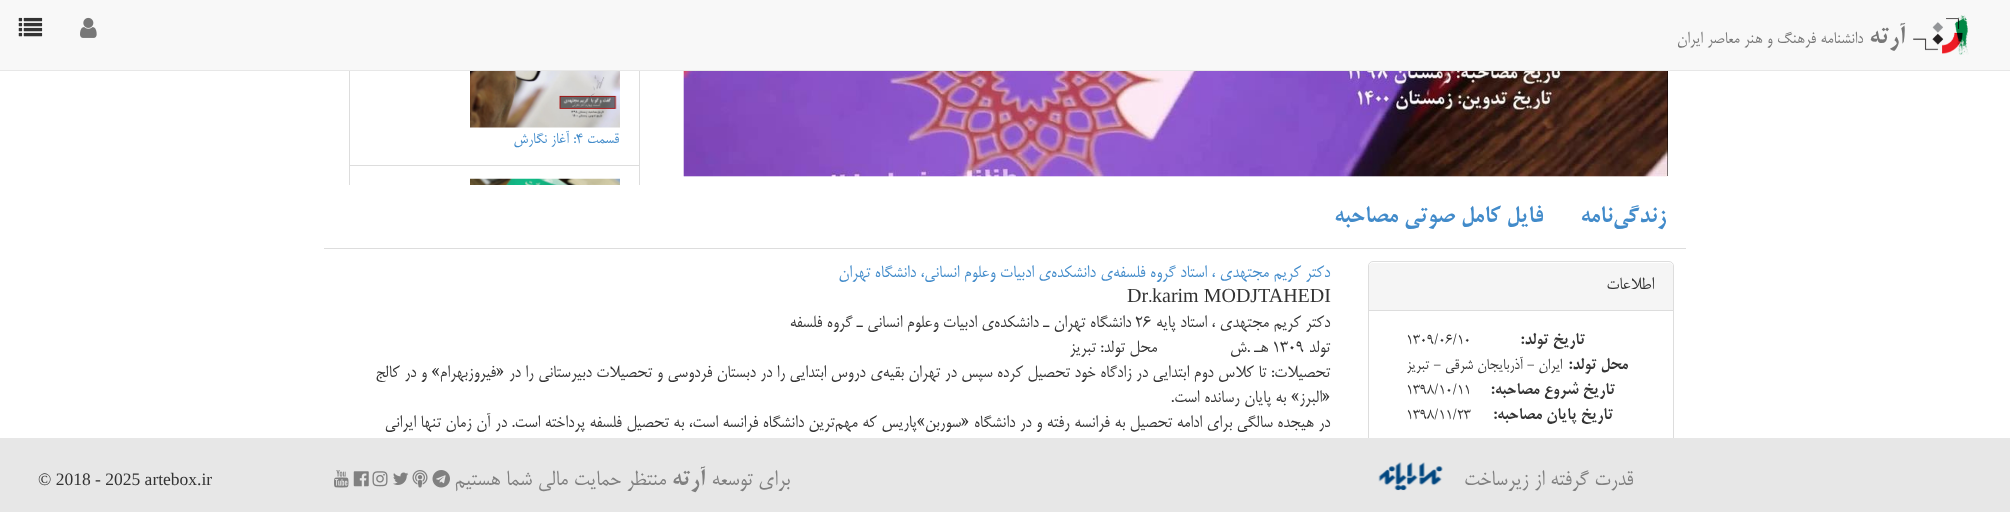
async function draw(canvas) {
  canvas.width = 2010;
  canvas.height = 512;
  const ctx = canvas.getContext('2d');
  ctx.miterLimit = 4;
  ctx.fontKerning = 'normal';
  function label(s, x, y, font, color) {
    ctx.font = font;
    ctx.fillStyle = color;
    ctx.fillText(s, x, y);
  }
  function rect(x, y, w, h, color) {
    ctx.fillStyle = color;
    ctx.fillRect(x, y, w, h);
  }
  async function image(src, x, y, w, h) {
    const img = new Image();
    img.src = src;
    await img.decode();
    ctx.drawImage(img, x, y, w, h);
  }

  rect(0, 0, 2010, 512, '#fff');
  ctx.strokeStyle = '#ddd';
  ctx.strokeRect(349.5, 30.5, 290, 135);
  rect(0, 0, 2010, 70, '#f8f8f8');
  rect(0, 70, 2010, 1, '#e7e7e7');
  await image('assets/img1.png', 1913, 15, 56, 40);
  ctx.direction = 'rtl';
  label('آرته', 1905, 43, 'bold 27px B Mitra', '#777');
  label('دانشنامه فرهنگ و هنر معاصر ایران', 1863, 43, '19.1px B Mitra', '#777');
  await image('assets/img2.png', 80, 17, 17, 21);
  await image('assets/img3.png', 18, 17, 25, 20);
  await image('assets/img4.png', 683, 71, 985, 106);
  rect(1667, 71, 1, 105, '#000');
  await image('assets/img5.png', 683, 71, 985, 106);
  await image('assets/img6.png', 470, 71, 150, 57);
  label('قسمت', 619, 143, '17.5px B Mitra', '#428bca');
  label(': آغاز نگارش', 576, 143, '17.5px B Mitra', '#428bca');
  ctx.direction = 'ltr';
  label('4', 576, 143, '17.5px B Mitra', '#428bca');
  rect(324, 248, 1362, 1, '#ddd');
  ctx.save();
  ctx.beginPath();
  ctx.rect(343, 0, 303, 185);
  ctx.clip();
  ctx.strokeRect(349.5, 165.5, 290, 137);
  ctx.restore();
  await image('assets/img7.png', 470, 178, 150, 7);
  ctx.direction = 'rtl';
  label('زندگی‌نامه', 1666, 222, 'bold 25px B Mitra', '#428bca');
  label('فایل کامل صوتی مصاحبه', 1543, 222, 'bold 25px B Mitra', '#428bca');
  ctx.beginPath();
  ctx.roundRect(1368.5, 261.5, 305, 188, 4.5);
  ctx.stroke();
  ctx.fillStyle = '#f5f5f5';
  ctx.beginPath();
  ctx.roundRect(1369, 263, 304, 47, [4, 4, 0, 0]);
  ctx.fill();
  label('اطلاعات', 1654, 289, '20px B Mitra', '#333');
  rect(1369, 310, 304, 1, '#ddd');
  label('تاریخ تولد:', 1585, 344, 'bold 17.5px B Mitra', '#333');
  ctx.direction = 'ltr';
  label('1309/06/10', 1406, 344, '17.5px B Mitra', '#333');
  ctx.direction = 'rtl';
  label('محل تولد:', 1628, 369, 'bold 17.5px B Mitra', '#333');
  label('ایران - آذربايجان شرقي -', 1562, 369, '17.5px B Mitra', '#333');
  label('تبريز', 1429, 369, '17.5px B Mitra', '#333');
  label('تاریخ شروع مصاحبه:', 1615, 394, 'bold 17.5px B Mitra', '#333');
  ctx.direction = 'ltr';
  label('1398/10/11', 1406, 394, '17.5px B Mitra', '#333');
  ctx.direction = 'rtl';
  label('تاریخ پایان مصاحبه:', 1613, 419, 'bold 17.5px B Mitra', '#333');
  ctx.direction = 'ltr';
  label('1398/11/23', 1406, 419, '17.5px B Mitra', '#333');
  ctx.direction = 'rtl';
  label('دکتر کریم مجتهدی ، استاد گروه فلسفه‌ی دانشکده‌ی ادبیات وعلوم انسانی، دانشگاه تهران', 1330, 277, '20px B Mitra', '#428bca');
  ctx.direction = 'ltr';
  label('.', 1148, 302, '20px B Mitra', '#333');
  label('karim MODJTAHEDI', 1152, 302, '20px Liberation Serif', '#333');
  label('Dr', 1127, 302, '20px Liberation Serif', '#333');
  ctx.direction = 'rtl';
  label('دکتر کریم مجتهدی ، استاد پایه', 1330, 327, '20px B Mitra', '#333');
  ctx.direction = 'ltr';
  label('26', 1135, 327, '20px B Mitra', '#333');
  ctx.direction = 'rtl';
  label('دانشگاه تهران ـ دانشکده‌ی ادبیات وعلوم انسانی ـ‌ گروه فلسفه', 1131, 327, '20px B Mitra', '#333');
  label('تولد', 1330, 352, '20px B Mitra', '#333');
  ctx.direction = 'ltr';
  label('1309', 1272, 352, '20px B Mitra', '#333');
  ctx.direction = 'rtl';
  label('هـ .ش                محل تولد: تبریز', 1268, 352, '20px B Mitra', '#333');
  label('تحصیلات: تا کلاس دوم ابتدایی در زادگاه خود تحصیل کرده سپس در تهران بقیه‌ی دروس ابتدایی را در دبستان فردوسی و تحصیلات دبیرستانی را در «فیروزبهرام» و در کالج', 1330, 377, '20px B Mitra', '#333');
  label('«البرز» به پایان رسانده است.', 1330, 402, '20px B Mitra', '#333');
  label('در هیجده سالگی برای ادامه تحصیل به فرانسه رفته و در دانشگاه «سوربن»‌پاریس که مهم‌ترین دانشگاه فرانسه است، به تحصیل فلسفه پرداخته است. در آن زمان تنها ایرانی', 1330, 427, '20px B Mitra', '#333');
  rect(0, 438, 2010, 74, '#e7e7e7');
  label('قدرت گرفته از زیرساخت', 1633, 485, '25px B Mitra', '#808080');
  await image('assets/img8.png', 1378, 462, 65, 29);
  label('برای توسعه', 790, 485, '25px B Mitra', '#808080');
  label('آرته', 705, 485, 'bold 25px B Mitra', '#808080');
  label('منتظر حمایت مالی شما هستیم', 666, 485, '25px B Mitra', '#808080');
  await image('assets/img9.png', 432, 470, 18, 18);
  await image('assets/img10.png', 412, 470, 16, 18);
  await image('assets/img11.png', 393, 472, 16, 13);
  await image('assets/img12.png', 372, 471, 16, 16);
  await image('assets/img13.png', 353, 471, 16, 16);
  await image('assets/img14.png', 334, 470, 15, 18);
  ctx.direction = 'ltr';
  label('© 2018 - 2025 artebox.ir', 38, 485, '17.5px Liberation Serif', '#333');
}

draw(document.querySelector('canvas'));
